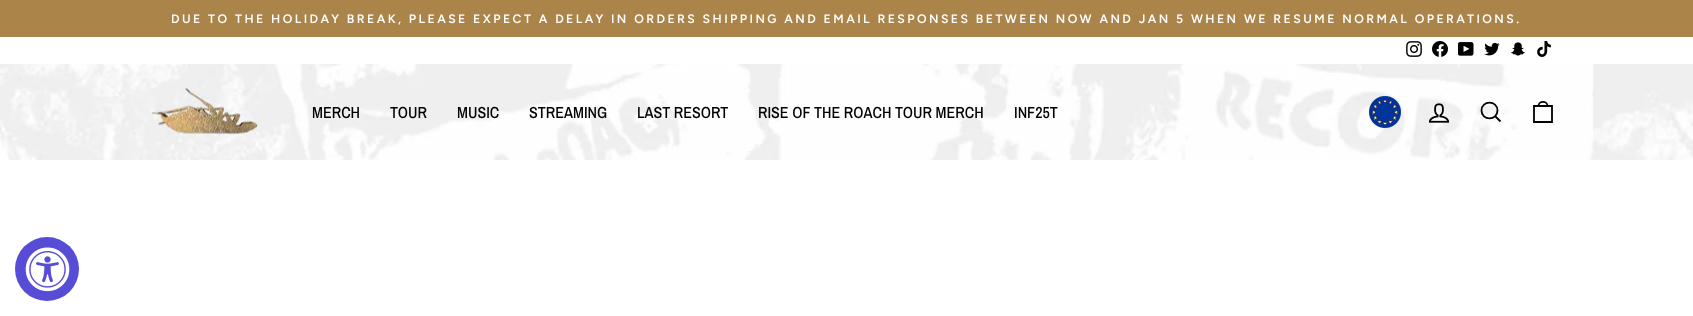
async function draw(canvas) {
  canvas.width = 1693;
  canvas.height = 316;
  const ctx = canvas.getContext('2d');
  ctx.miterLimit = 4;
  ctx.fontKerning = 'normal';
  function label(s, x, y, font, color) {
    ctx.font = font;
    ctx.fillStyle = color;
    ctx.fillText(s, x, y);
  }
  function rect(x, y, w, h, color) {
    ctx.fillStyle = color;
    ctx.fillRect(x, y, w, h);
  }
  async function image(src, x, y, w, h) {
    const img = new Image();
    img.src = src;
    await img.decode();
    ctx.drawImage(img, x, y, w, h);
  }
  let path;

  rect(0, 0, 1693, 316, '#fff');
  rect(0, 0, 1693, 37, '#ab8449');
  ctx.letterSpacing = '2.45px';
  label('DUE TO THE HOLIDAY BREAK, PLEASE EXPECT A DELAY IN ORDERS SHIPPING AND EMAIL RESPONSES BETWEEN NOW AND JAN 5 WHEN WE RESUME NORMAL OPERATIONS.', 171, 23, '600 12.24px Figtree', '#fff');
  await image('assets/img1.png', 1406, 41, 16, 16);
  await image('assets/img2.png', 1432, 41, 16, 16);
  await image('assets/img3.png', 1458, 42, 16, 14);
  await image('assets/img4.png', 1484, 42, 16, 14);
  await image('assets/img5.png', 1511, 42, 14, 14);
  await image('assets/img6.png', 1537, 41, 14, 16);
  ctx.fillStyle = '#00000033';
  ctx.filter = 'blur(0.5px)';
  ctx.beginPath();
  ctx.rect(0, 64, 1693, 96);
  ctx.fill();
  ctx.filter = 'none';
  await image('assets/img7.png', 0, 64, 1693, 96);
  await image('assets/img8.png', 151, 87, 107, 48);
  ctx.letterSpacing = '0px';
  label('MERCH', 312, 118, '500 16px Archivo Narrow', '#000');
  label('TOUR', 390, 118, '500 16px Archivo Narrow', '#000');
  label('MUSIC', 457, 118, '500 16px Archivo Narrow', '#000');
  label('STREAMING', 529, 118, '500 16px Archivo Narrow', '#000');
  label('LAST RESORT', 637, 118, '500 16px Archivo Narrow', '#000');
  label('RISE OF THE ROACH TOUR MERCH', 758, 118, '500 16px Archivo Narrow', '#000');
  label('INF25T', 1014, 118, '500 16px Archivo Narrow', '#000');
  await image('assets/img9.png', 1369, 96, 32, 32);
  await image('assets/img10.png', 1428, 103, 22, 20);
  path = new Path2D('M1497.5 110.5C1497.5 121 1481.5 121 1481.5 110.5C1481.5 100 1497.5 100 1497.5 110.5ZM1500.5 121.5L1495.5 116.5');
  ctx.strokeStyle = '#000';
  ctx.lineWidth = 1.8;
  ctx.stroke(path);
  path = new Path2D('M1534 106H1552V122H1534ZM1538.5 106C1538.5 100.5 1547.5 100.5 1547.5 106');
  ctx.stroke(path);
  ctx.fillStyle = '#574cd5';
  ctx.beginPath();
  ctx.arc(47, 269, 32, 0, 2 * Math.PI);
  ctx.fill();
  await image('assets/img11.png', 25, 247, 45, 45);
}

draw(document.querySelector('canvas'));
